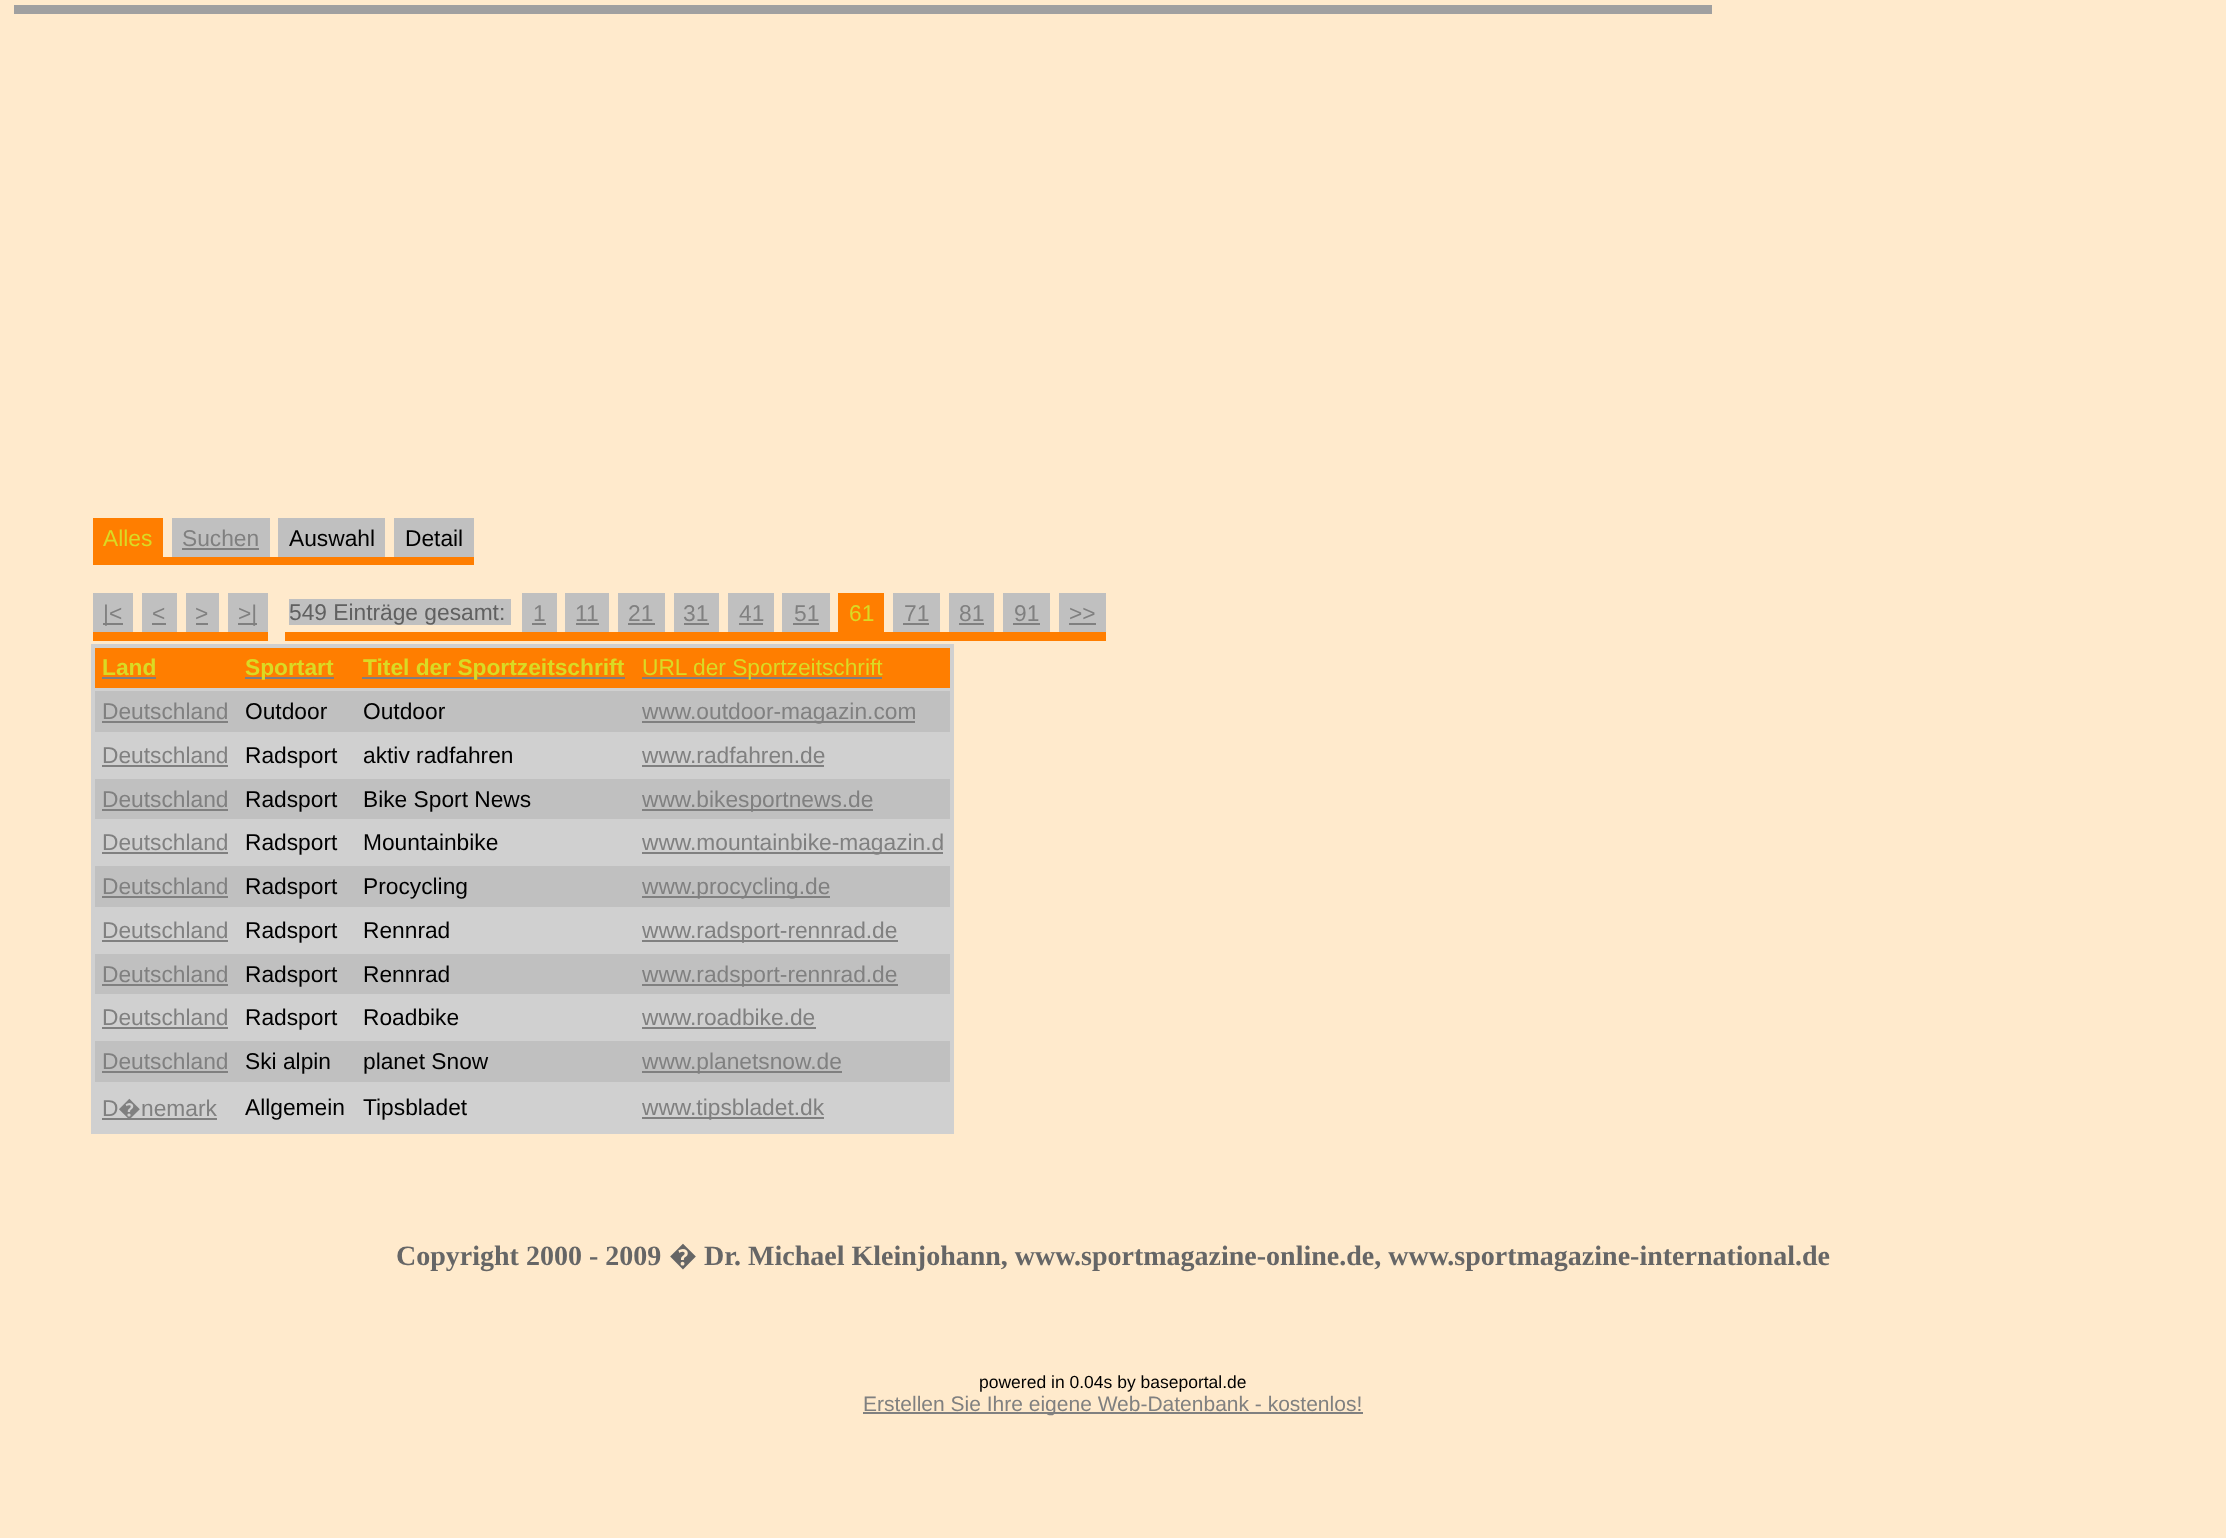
async function draw(canvas) {
  canvas.width = 2226;
  canvas.height = 1538;
  const ctx = canvas.getContext('2d');
  ctx.miterLimit = 4;
  ctx.fontKerning = 'normal';
  function label(s, x, y, font, color) {
    ctx.font = font;
    ctx.fillStyle = color;
    ctx.fillText(s, x, y);
  }
  function rect(x, y, w, h, color) {
    ctx.fillStyle = color;
    ctx.fillRect(x, y, w, h);
  }

  rect(0, 0, 2226, 1538, '#ffeacc');
  rect(14, 5, 1698, 9, '#a0a0a0');
  rect(93, 518, 70, 39, '#ff7e00');
  label('Alles', 103, 546, '22.75px Liberation Sans', '#dada24');
  rect(172, 518, 98, 39, '#c0c0c0');
  label('Suchen', 182, 546, '22.75px Liberation Sans', '#808080');
  rect(182, 548, 77, 2, '#808080');
  rect(278, 518, 107, 39, '#c0c0c0');
  label('Auswahl', 289, 546, '22.75px Liberation Sans', '#000');
  rect(394, 518, 80, 39, '#c0c0c0');
  label('Detail', 405, 546, '22.75px Liberation Sans', '#000');
  rect(93, 557, 381, 8, '#ff7e00');
  rect(93, 593, 40, 39, '#c0c0c0');
  rect(103, 623, 20, 2, '#808080');
  label('|<', 103, 621, '22.75px Liberation Sans', '#808080');
  rect(142, 593, 35, 39, '#c0c0c0');
  label('<', 152, 621, '22.75px Liberation Sans', '#808080');
  rect(152, 623, 14, 2, '#808080');
  rect(186, 593, 33, 39, '#c0c0c0');
  label('>', 195, 621, '22.75px Liberation Sans', '#808080');
  rect(196, 623, 12, 2, '#808080');
  rect(228, 593, 40, 39, '#c0c0c0');
  rect(238, 623, 19, 2, '#808080');
  label('>|', 238, 621, '22.75px Liberation Sans', '#808080');
  rect(93, 632, 175, 9, '#ff7e00');
  rect(289, 599, 222, 26, '#c0c0c0');
  label('549 Einträge gesamt:', 289, 620, '22.75px Liberation Sans', '#606060');
  rect(522, 593, 35, 39, '#c0c0c0');
  label('1', 533, 621, '22.75px Liberation Sans', '#808080');
  rect(532, 623, 14, 2, '#808080');
  rect(565, 593, 44, 39, '#c0c0c0');
  label('11', 575, 621, '22.75px Liberation Sans', '#808080');
  rect(576, 623, 23, 2, '#808080');
  rect(618, 593, 47, 39, '#c0c0c0');
  label('21', 628, 621, '22.75px Liberation Sans', '#808080');
  rect(628, 623, 27, 2, '#808080');
  rect(674, 593, 45, 39, '#c0c0c0');
  label('31', 683, 621, '22.75px Liberation Sans', '#808080');
  rect(684, 623, 25, 2, '#808080');
  rect(728, 593, 46, 39, '#c0c0c0');
  label('41', 739, 621, '22.75px Liberation Sans', '#808080');
  rect(739, 623, 24, 2, '#808080');
  rect(782, 593, 48, 39, '#c0c0c0');
  label('51', 794, 621, '22.75px Liberation Sans', '#808080');
  rect(793, 623, 26, 2, '#808080');
  rect(838, 593, 46, 39, '#ff7e00');
  label('61', 849, 621, '22.75px Liberation Sans', '#dada24');
  rect(893, 593, 47, 39, '#c0c0c0');
  label('71', 904, 621, '22.75px Liberation Sans', '#808080');
  rect(903, 623, 26, 2, '#808080');
  rect(949, 593, 45, 39, '#c0c0c0');
  label('81', 959, 621, '22.75px Liberation Sans', '#808080');
  rect(959, 623, 25, 2, '#808080');
  rect(1003, 593, 47, 39, '#c0c0c0');
  label('91', 1014, 621, '22.75px Liberation Sans', '#808080');
  rect(1013, 623, 27, 2, '#808080');
  rect(1059, 593, 47, 39, '#c0c0c0');
  label('>>', 1069, 621, '22.75px Liberation Sans', '#808080');
  rect(1069, 623, 27, 2, '#808080');
  rect(285, 632, 821, 9, '#ff7e00');
  rect(91, 644, 863, 490, '#d0d0d0');
  rect(95, 648, 855, 40, '#ff7e00');
  label('Land', 102, 675, 'bold 22.75px Liberation Sans', '#dada24');
  rect(102, 677, 54, 2, '#808080');
  rect(245, 677, 89, 2, '#808080');
  label('Sportart', 245, 675, 'bold 22.75px Liberation Sans', '#dada24');
  rect(362, 677, 263, 2, '#808080');
  label('Titel der Sportzeitschrift', 363, 675, 'bold 22.75px Liberation Sans', '#dada24');
  rect(642, 677, 240, 2, '#808080');
  label('URL der Sportzeitschrift', 642, 675, '22.75px Liberation Sans', '#dada24');
  rect(95, 691, 855, 41, '#c0c0c0');
  label('Deutschland', 102, 719, '22.75px Liberation Sans', '#808080');
  rect(102, 721, 126, 2, '#808080');
  label('Outdoor', 245, 719, '22.75px Liberation Sans', '#000');
  label('Outdoor', 363, 719, '22.75px Liberation Sans', '#000');
  rect(642, 721, 273, 2, '#808080');
  label('www.outdoor-magazin.com', 642, 719, '22.75px Liberation Sans', '#808080');
  label('Deutschland', 102, 763, '22.75px Liberation Sans', '#808080');
  rect(102, 765, 126, 2, '#808080');
  label('Radsport', 245, 763, '22.75px Liberation Sans', '#000');
  label('aktiv radfahren', 363, 763, '22.75px Liberation Sans', '#000');
  label('www.radfahren.de', 642, 763, '22.75px Liberation Sans', '#808080');
  rect(642, 765, 182, 2, '#808080');
  rect(95, 779, 855, 40, '#c0c0c0');
  label('Deutschland', 102, 807, '22.75px Liberation Sans', '#808080');
  rect(102, 809, 126, 2, '#808080');
  label('Radsport', 245, 807, '22.75px Liberation Sans', '#000');
  label('Bike Sport News', 363, 807, '22.75px Liberation Sans', '#000');
  rect(642, 809, 231, 2, '#808080');
  label('www.bikesportnews.de', 642, 807, '22.75px Liberation Sans', '#808080');
  label('Deutschland', 102, 850, '22.75px Liberation Sans', '#808080');
  rect(102, 852, 126, 2, '#808080');
  label('Radsport', 245, 850, '22.75px Liberation Sans', '#000');
  label('Mountainbike', 363, 850, '22.75px Liberation Sans', '#000');
  rect(642, 852, 301, 2, '#808080');
  label('www.mountainbike-magazin.d', 642, 850, '22.75px Liberation Sans', '#808080');
  rect(95, 866, 855, 41, '#c0c0c0');
  label('Deutschland', 102, 894, '22.75px Liberation Sans', '#808080');
  rect(102, 896, 126, 2, '#808080');
  label('Radsport', 245, 894, '22.75px Liberation Sans', '#000');
  label('Procycling', 363, 894, '22.75px Liberation Sans', '#000');
  rect(642, 896, 188, 2, '#808080');
  label('www.procycling.de', 642, 894, '22.75px Liberation Sans', '#808080');
  label('Deutschland', 102, 938, '22.75px Liberation Sans', '#808080');
  rect(102, 940, 126, 2, '#808080');
  label('Radsport', 245, 938, '22.75px Liberation Sans', '#000');
  label('Rennrad', 363, 938, '22.75px Liberation Sans', '#000');
  rect(642, 940, 256, 2, '#808080');
  label('www.radsport-rennrad.de', 642, 938, '22.75px Liberation Sans', '#808080');
  rect(95, 954, 855, 40, '#c0c0c0');
  label('Deutschland', 102, 982, '22.75px Liberation Sans', '#808080');
  rect(102, 984, 126, 2, '#808080');
  label('Radsport', 245, 982, '22.75px Liberation Sans', '#000');
  label('Rennrad', 363, 982, '22.75px Liberation Sans', '#000');
  rect(642, 984, 256, 2, '#808080');
  label('www.radsport-rennrad.de', 642, 982, '22.75px Liberation Sans', '#808080');
  label('Deutschland', 102, 1025, '22.75px Liberation Sans', '#808080');
  rect(102, 1027, 126, 2, '#808080');
  label('Radsport', 245, 1025, '22.75px Liberation Sans', '#000');
  label('Roadbike', 363, 1025, '22.75px Liberation Sans', '#000');
  label('www.roadbike.de', 642, 1025, '22.75px Liberation Sans', '#808080');
  rect(642, 1027, 174, 2, '#808080');
  rect(95, 1041, 855, 41, '#c0c0c0');
  label('Deutschland', 102, 1069, '22.75px Liberation Sans', '#808080');
  rect(102, 1071, 126, 2, '#808080');
  label('Ski alpin', 245, 1069, '22.75px Liberation Sans', '#000');
  label('planet Snow', 363, 1069, '22.75px Liberation Sans', '#000');
  rect(642, 1071, 200, 2, '#808080');
  label('www.planetsnow.de', 642, 1069, '22.75px Liberation Sans', '#808080');
  label('D', 102, 1116, '22.75px Liberation Sans', '#808080');
  rect(102, 1118, 115, 2, '#808080');
  label('�', 118, 1116, '22.75px Noto Sans', '#808080');
  label('nemark', 141, 1116, '22.75px Liberation Sans', '#808080');
  label('Allgemein', 245, 1115, '22.75px Liberation Sans', '#000');
  label('Tipsbladet', 363, 1115, '22.75px Liberation Sans', '#000');
  rect(642, 1117, 182, 2, '#808080');
  label('www.tipsbladet.dk', 642, 1115, '22.75px Liberation Sans', '#808080');
  label('Copyright 2000 - 2009', 396, 1265, 'bold 28px Liberation Serif', '#666');
  label('�', 669, 1265, 'bold 28px Noto Sans', '#666');
  label('Dr. Michael Kleinjohann, www.sportmagazine-online.de, www.sportmagazine-international.de', 704, 1265, 'bold 28px Liberation Serif', '#666');
  label('powered in 0.04s by baseportal.de', 979, 1388, '17.5px Liberation Sans', '#000');
  rect(863, 1412, 500, 2, '#808080');
  label('Erstellen Sie Ihre eigene Web-Datenbank - kostenlos!', 863, 1411, '21px Liberation Sans', '#808080');
}

draw(document.querySelector('canvas'));
